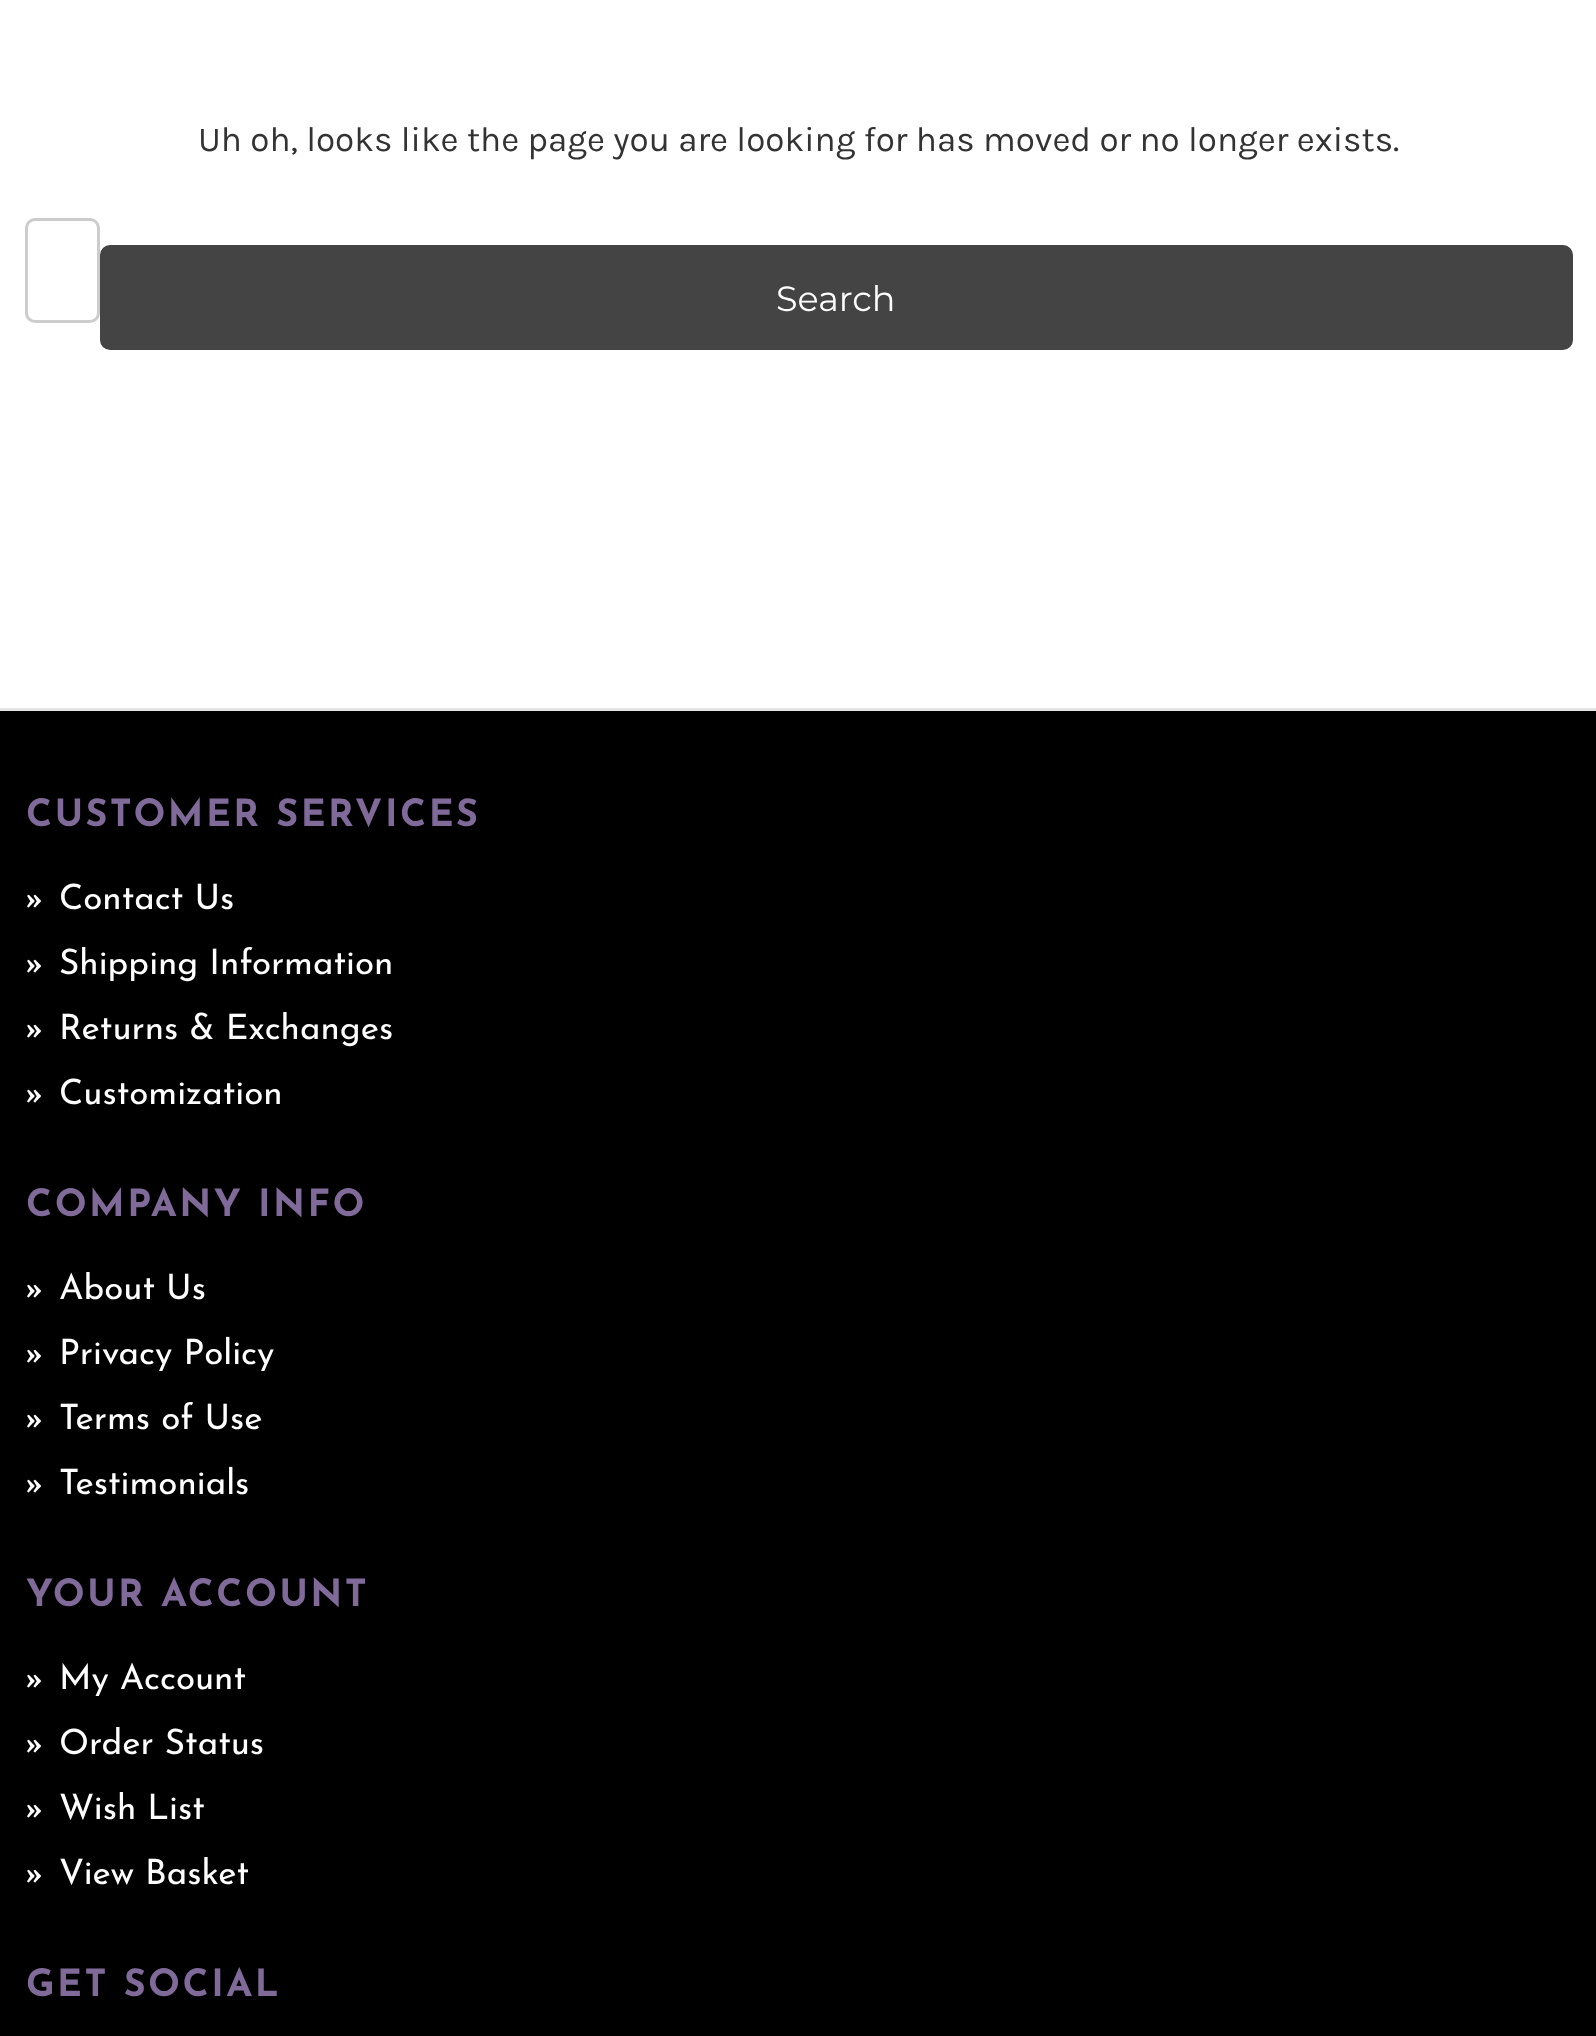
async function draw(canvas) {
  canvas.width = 1596;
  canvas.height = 2036;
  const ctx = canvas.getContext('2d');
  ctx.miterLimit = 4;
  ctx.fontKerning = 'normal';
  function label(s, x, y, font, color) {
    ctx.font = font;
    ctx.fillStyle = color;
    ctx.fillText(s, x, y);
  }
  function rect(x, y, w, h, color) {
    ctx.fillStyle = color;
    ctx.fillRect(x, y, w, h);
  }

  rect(0, 0, 1596, 2036, '#fff');
  label('Uh oh, looks like the page you are looking for has moved or no longer exists.', 198, 151, '35px Karla', '#333');
  ctx.beginPath();
  ctx.roundRect(26.5, 219.5, 72, 102, 8.5);
  ctx.strokeStyle = '#ccc';
  ctx.lineWidth = 3;
  ctx.stroke();
  ctx.fillStyle = '#444';
  ctx.beginPath();
  ctx.roundRect(101.5, 246.5, 1470, 102, 8.5);
  ctx.fill();
  ctx.strokeStyle = '#444';
  ctx.stroke();
  label('Search', 776, 311, '100 35px Montserrat', '#fff');
  rect(0, 711, 1596, 1325, '#000');
  rect(0, 708, 1596, 3, '#e5e5e5');
  ctx.letterSpacing = '2.5px';
  label('CUSTOMER SERVICES', 26, 826, 'bold 37.5px Josefin Sans', '#806a99');
  ctx.letterSpacing = '0px';
  label('»', 26, 909, 'bold 35px Alegreya', '#fff');
  label('Contact Us', 59, 909, '35px Josefin Sans', '#fff');
  label('»', 26, 974, 'bold 35px Alegreya', '#fff');
  label('Shipping Information', 59, 974, '35px Josefin Sans', '#fff');
  label('»', 26, 1039, 'bold 35px Alegreya', '#fff');
  label('Returns & Exchanges', 59, 1039, '35px Josefin Sans', '#fff');
  label('»', 26, 1104, 'bold 35px Alegreya', '#fff');
  label('Customization', 59, 1104, '35px Josefin Sans', '#fff');
  ctx.letterSpacing = '2.5px';
  label('COMPANY INFO', 26, 1216, 'bold 37.5px Josefin Sans', '#806a99');
  ctx.letterSpacing = '0px';
  label('»', 26, 1299, 'bold 35px Alegreya', '#fff');
  label('About Us', 59, 1299, '35px Josefin Sans', '#fff');
  label('»', 26, 1364, 'bold 35px Alegreya', '#fff');
  label('Privacy Policy', 59, 1364, '35px Josefin Sans', '#fff');
  label('»', 26, 1429, 'bold 35px Alegreya', '#fff');
  label('Terms of Use', 59, 1429, '35px Josefin Sans', '#fff');
  label('»', 26, 1494, 'bold 35px Alegreya', '#fff');
  label('Testimonials', 59, 1494, '35px Josefin Sans', '#fff');
  ctx.letterSpacing = '2.5px';
  label('YOUR ACCOUNT', 26, 1606, 'bold 37.5px Josefin Sans', '#806a99');
  ctx.letterSpacing = '0px';
  label('»', 26, 1689, 'bold 35px Alegreya', '#fff');
  label('My Account', 59, 1689, '35px Josefin Sans', '#fff');
  label('»', 26, 1754, 'bold 35px Alegreya', '#fff');
  label('Order Status', 59, 1754, '35px Josefin Sans', '#fff');
  label('»', 26, 1819, 'bold 35px Alegreya', '#fff');
  label('Wish List', 59, 1819, '35px Josefin Sans', '#fff');
  label('»', 26, 1884, 'bold 35px Alegreya', '#fff');
  label('View Basket', 59, 1884, '35px Josefin Sans', '#fff');
  ctx.letterSpacing = '2.5px';
  label('GET SOCIAL', 26, 1996, 'bold 37.5px Josefin Sans', '#806a99');
}

draw(document.querySelector('canvas'));
